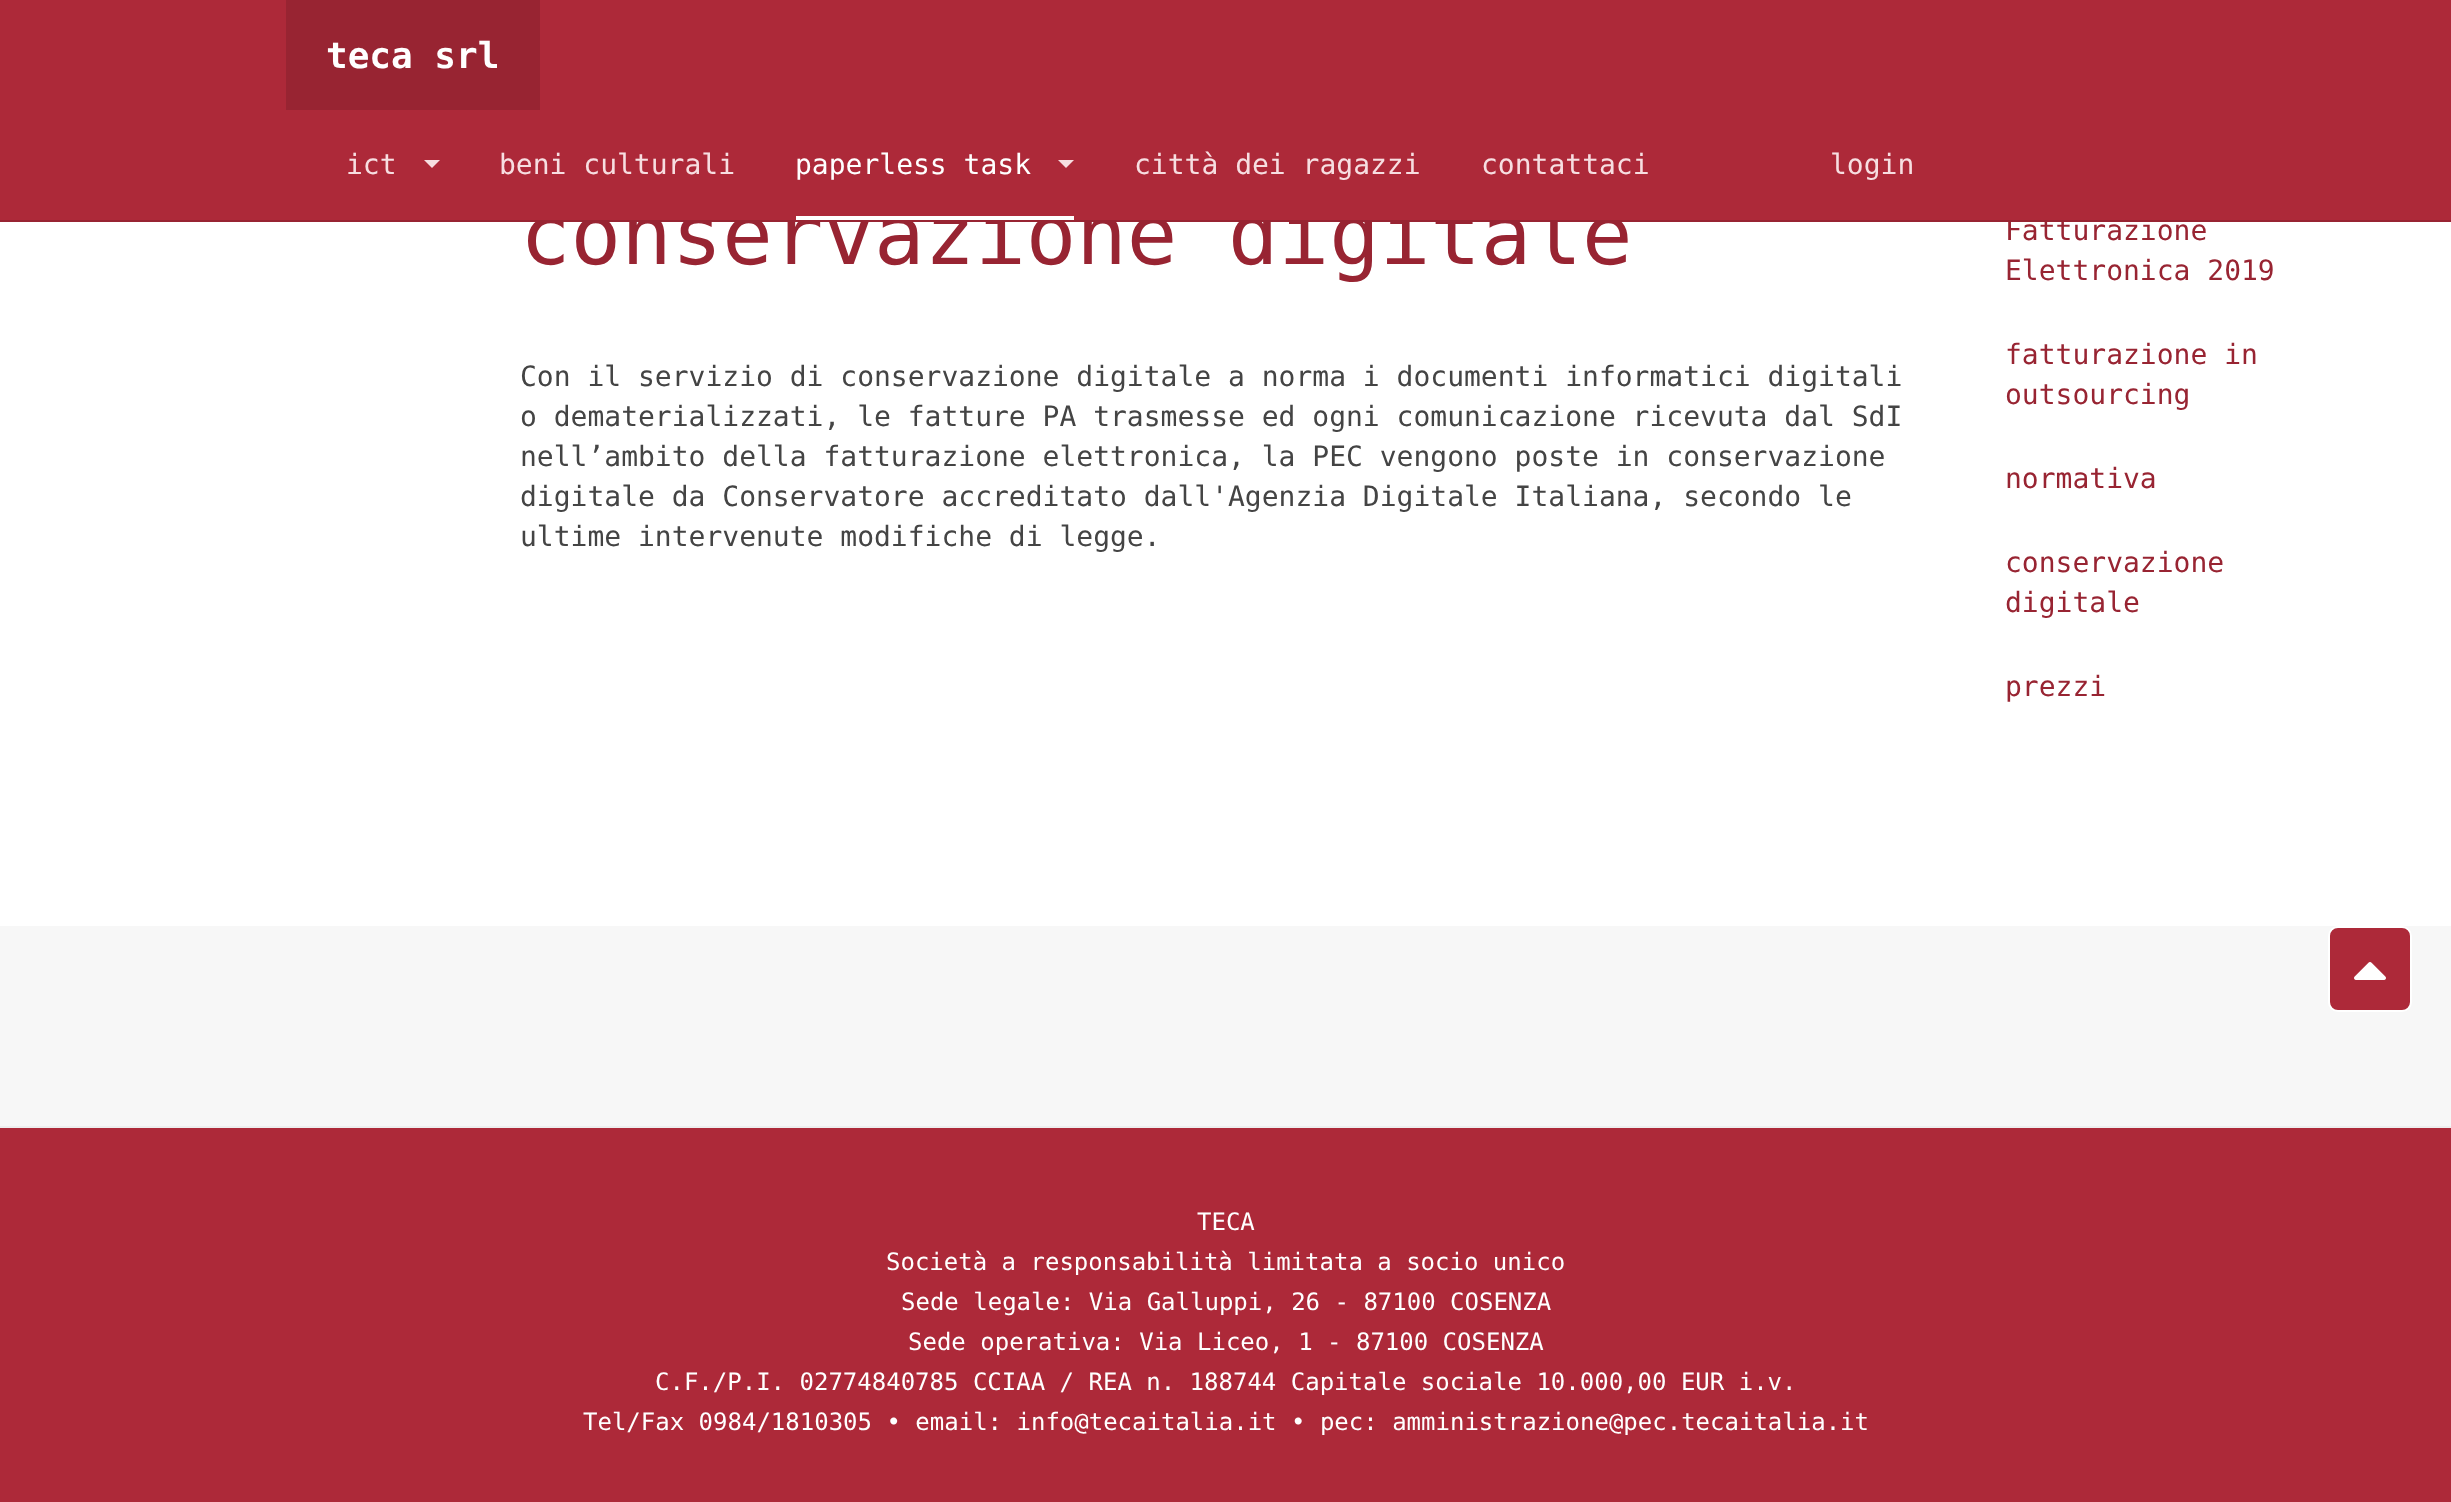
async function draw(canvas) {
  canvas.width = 2451;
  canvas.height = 1502;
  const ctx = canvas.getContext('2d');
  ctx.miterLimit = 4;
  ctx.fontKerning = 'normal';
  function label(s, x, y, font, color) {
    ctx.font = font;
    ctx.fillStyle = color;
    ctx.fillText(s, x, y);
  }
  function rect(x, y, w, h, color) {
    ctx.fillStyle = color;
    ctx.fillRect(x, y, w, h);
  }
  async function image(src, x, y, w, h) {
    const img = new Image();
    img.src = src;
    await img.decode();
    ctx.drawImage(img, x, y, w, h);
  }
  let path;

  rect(0, 0, 2451, 1502, '#fff');
  label('conservazione digitale', 520, 264, '84px DejaVu Sans Mono', '#982432');
  label('Fatturazione', 2005, 240, '28px DejaVu Sans Mono', '#982432');
  rect(0, 0, 2451, 220, '#ad2939');
  rect(0, 220, 2451, 2, '#982432');
  rect(286, 0, 254, 110, '#982432');
  label('teca srl', 326, 68, 'bold 36px DejaVu Sans Mono', '#fff');
  label('ict', 346, 174, '28px DejaVu Sans Mono', '#f7dee1');
  path = new Path2D('M424 160H440L432 168Z');
  ctx.fill(path);
  label('beni culturali', 499, 174, '28px DejaVu Sans Mono', '#f7dee1');
  rect(796, 216, 278, 4, '#fff');
  label('paperless task', 795, 174, '28px DejaVu Sans Mono', '#fff');
  ctx.fillStyle = '#f7dee1';
  path = new Path2D('M1058 160H1074L1066 168Z');
  ctx.fill(path);
  label('città dei ragazzi', 1134, 174, '28px DejaVu Sans Mono', '#f7dee1');
  label('contattaci', 1481, 174, '28px DejaVu Sans Mono', '#f7dee1');
  label('login', 1830, 174, '28px DejaVu Sans Mono', '#f7dee1');
  label('Con il servizio di conservazione digitale a norma i documenti informatici digitali', 520, 386, '28px DejaVu Sans Mono', '#444');
  label('o dematerializzati, le fatture PA trasmesse ed ogni comunicazione ricevuta dal SdI', 520, 426, '28px DejaVu Sans Mono', '#444');
  label('nell’ambito della fatturazione elettronica, la PEC vengono poste in conservazione', 520, 466, '28px DejaVu Sans Mono', '#444');
  label('digitale da Conservatore accreditato dall\'Agenzia Digitale Italiana, secondo le', 520, 506, '28px DejaVu Sans Mono', '#444');
  label('ultime intervenute modifiche di legge.', 520, 546, '28px DejaVu Sans Mono', '#444');
  label('Elettronica 2019', 2005, 280, '28px DejaVu Sans Mono', '#982432');
  label('fatturazione in', 2005, 364, '28px DejaVu Sans Mono', '#982432');
  label('outsourcing', 2005, 404, '28px DejaVu Sans Mono', '#982432');
  label('normativa', 2005, 488, '28px DejaVu Sans Mono', '#982432');
  label('conservazione', 2005, 572, '28px DejaVu Sans Mono', '#982432');
  label('digitale', 2005, 612, '28px DejaVu Sans Mono', '#982432');
  label('prezzi', 2005, 696, '28px DejaVu Sans Mono', '#982432');
  rect(0, 926, 2451, 200, '#f7f7f7');
  ctx.fillStyle = '#ad2939';
  ctx.beginPath();
  ctx.roundRect(2329, 927, 82, 84, 9);
  ctx.fill();
  ctx.strokeStyle = '#fff';
  ctx.lineWidth = 2;
  ctx.stroke();
  await image('assets/img1.png', 2354, 962, 32, 18);
  rect(0, 1128, 2451, 374, '#ad2939');
  rect(0, 1126, 2451, 2, '#eee');
  label('TECA', 1197, 1230, '24px DejaVu Sans Mono', '#fff');
  label('Società a responsabilità limitata a socio unico', 886, 1270, '24px DejaVu Sans Mono', '#fff');
  label('Sede legale: Via Galluppi, 26 - 87100 COSENZA', 901, 1310, '24px DejaVu Sans Mono', '#fff');
  label('Sede operativa: Via Liceo, 1 - 87100 COSENZA', 908, 1350, '24px DejaVu Sans Mono', '#fff');
  label('C.F./P.I. 02774840785 CCIAA / REA n. 188744 Capitale sociale 10.000,00 EUR i.v.', 655, 1390, '24px DejaVu Sans Mono', '#fff');
  label('Tel/Fax 0984/1810305 • email: info@tecaitalia.it • pec: amministrazione@pec.tecaitalia.it', 583, 1430, '24px DejaVu Sans Mono', '#fff');
}

draw(document.querySelector('canvas'));
